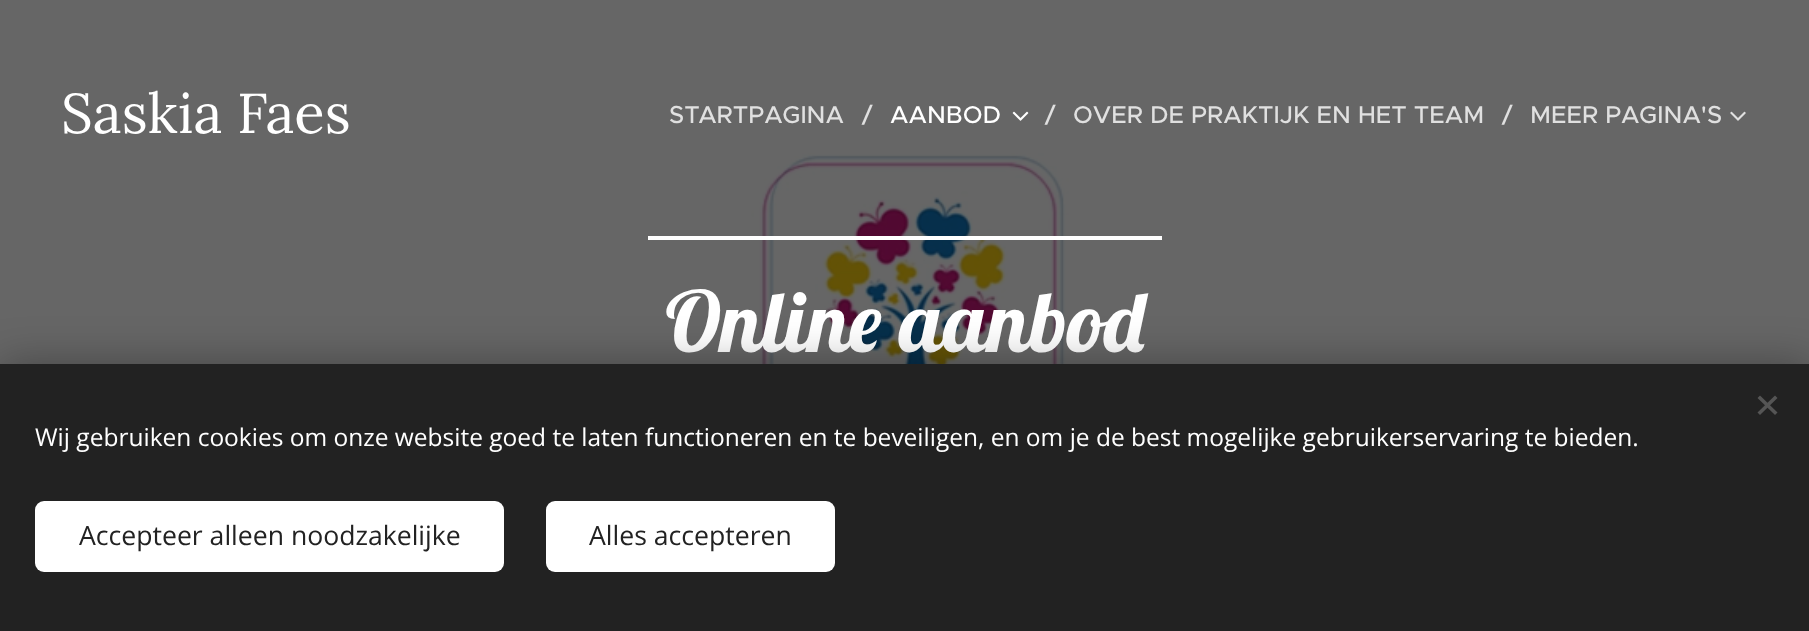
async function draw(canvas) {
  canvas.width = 1809;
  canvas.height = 631;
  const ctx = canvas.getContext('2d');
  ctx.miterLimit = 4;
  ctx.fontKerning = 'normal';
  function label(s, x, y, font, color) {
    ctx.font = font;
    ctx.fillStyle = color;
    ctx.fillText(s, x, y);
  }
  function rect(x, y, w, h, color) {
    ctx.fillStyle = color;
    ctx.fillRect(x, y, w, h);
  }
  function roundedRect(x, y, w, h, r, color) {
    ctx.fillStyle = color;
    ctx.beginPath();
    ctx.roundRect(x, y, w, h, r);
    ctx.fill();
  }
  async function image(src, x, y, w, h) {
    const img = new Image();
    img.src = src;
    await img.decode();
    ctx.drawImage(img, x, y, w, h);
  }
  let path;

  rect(0, 0, 1809, 631, '#fff');
  await image('assets/img3.png', 0, 0, 1809, 364);
  label('Saskia Faes', 61, 133, '56px Lora', '#fff');
  label('STARTPAGINA', 669, 123, '500 24.5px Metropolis', '#e0e0e0');
  label('/', 862, 123, '500 24.5px Metropolis', '#e0e0e0');
  label('AANBOD', 890, 123, '500 24.5px Metropolis', '#fff');
  label('/', 1045, 123, '500 24.5px Metropolis', '#e0e0e0');
  await image('assets/img1.png', 1012, 111, 17, 10);
  label('OVER DE PRAKTIJK EN HET TEAM', 1073, 123, '500 24.5px Metropolis', '#e0e0e0');
  label('/', 1502, 123, '500 24.5px Metropolis', '#e0e0e0');
  label('MEER PAGINA\'S', 1530, 123, '500 24.5px Metropolis', '#e0e0e0');
  await image('assets/img2.png', 1730, 111, 16, 10);
  rect(648, 236, 514, 4, '#fff');
  label('Online aanbod', 665, 352, '84px Lobster', '#fff');
  ctx.fillStyle = '#00000054';
  ctx.filter = 'blur(22px)';
  ctx.beginPath();
  ctx.rect(0, 364, 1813, 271);
  ctx.fill();
  ctx.filter = 'none';
  rect(0, 364, 1809, 267, '#222');
  ctx.fillStyle = '#555';
  path = new Path2D('M1757.5 412.5L1775 395.5L1777.5 398L1760 415Z');
  ctx.fill(path);
  path = new Path2D('M1760 395.5L1777.5 412.5L1775 415L1757.5 398Z');
  ctx.fill(path);
  label('Wij gebruiken cookies om onze website goed te laten functioneren en te beveiligen, en om je de best mogelijke gebruikerservaring te bieden.', 35, 446, '24.5px Open Sans', '#fff');
  roundedRect(35, 501, 469, 71, 9, '#fff');
  label('Accepteer alleen noodzakelijke', 79, 545, '26.6px Open Sans', '#222');
  roundedRect(546, 501, 289, 71, 9, '#fff');
  label('Alles accepteren', 589, 545, '26.6px Open Sans', '#222');
}

draw(document.querySelector('canvas'));
